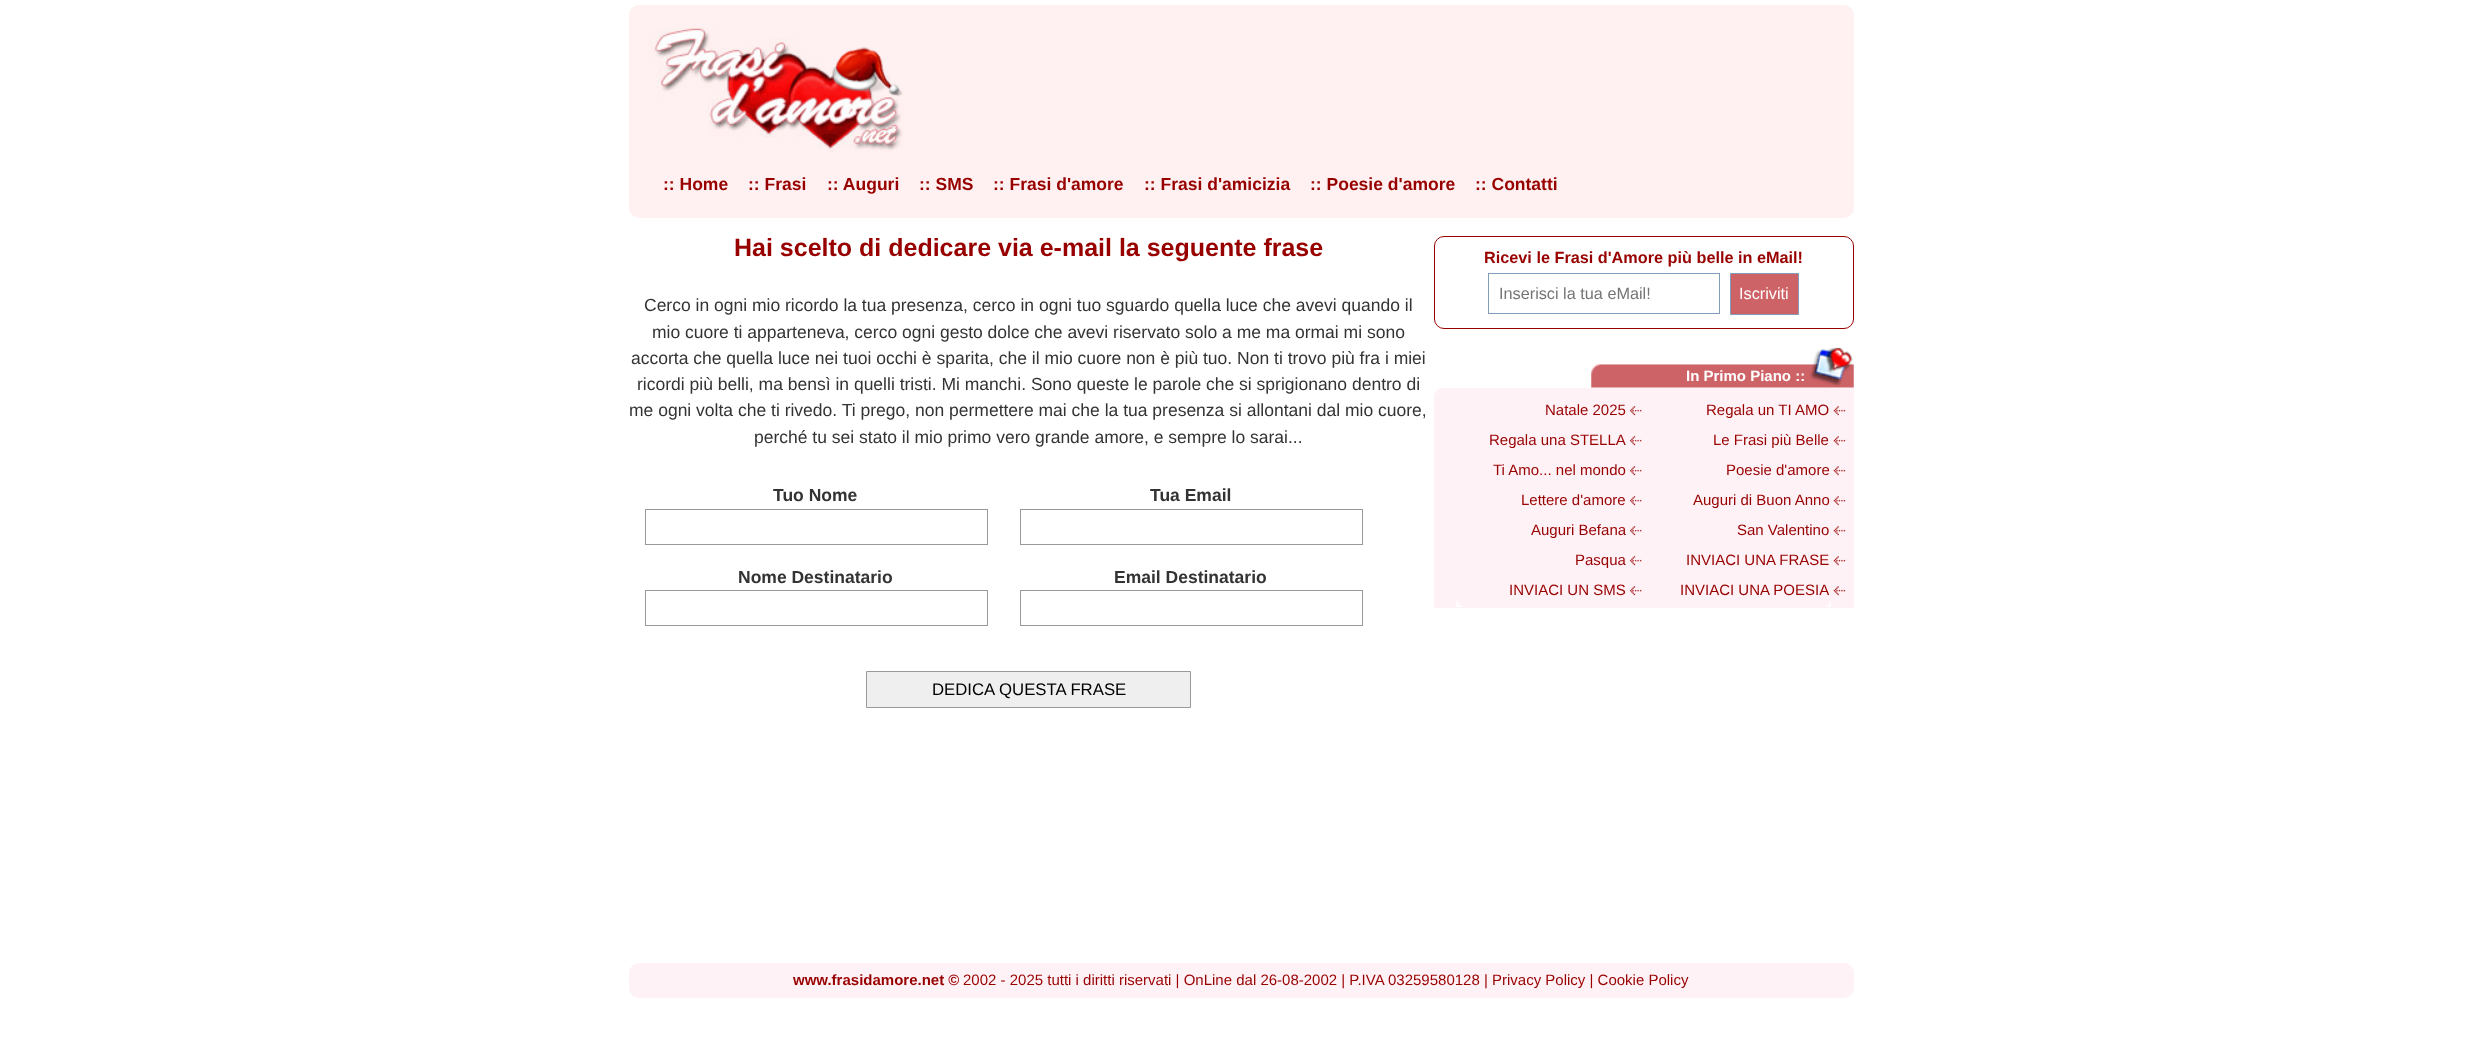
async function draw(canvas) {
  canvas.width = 2481;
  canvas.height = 1054;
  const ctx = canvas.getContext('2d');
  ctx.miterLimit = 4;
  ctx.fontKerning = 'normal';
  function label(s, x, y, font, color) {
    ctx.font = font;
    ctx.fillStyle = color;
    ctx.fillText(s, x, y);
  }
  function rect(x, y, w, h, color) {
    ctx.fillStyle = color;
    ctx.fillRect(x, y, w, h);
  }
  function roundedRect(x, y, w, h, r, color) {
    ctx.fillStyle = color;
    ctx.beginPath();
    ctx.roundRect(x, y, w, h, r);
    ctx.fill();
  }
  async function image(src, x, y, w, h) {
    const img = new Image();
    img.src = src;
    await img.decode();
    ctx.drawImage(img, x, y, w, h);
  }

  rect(0, 0, 2481, 1054, '#fff');
  roundedRect(629, 5, 1225, 213, 10, '#fff1f1');
  await image('assets/img1.png', 649, 27, 254, 125);
  label(':: Home', 663, 190, 'bold 17.5px Liberation Sans', '#980000');
  label(':: Frasi', 748, 190, 'bold 17.5px Liberation Sans', '#980000');
  label(':: Auguri', 827, 190, 'bold 17.5px Liberation Sans', '#980000');
  label(':: SMS', 919, 190, 'bold 17.5px Liberation Sans', '#980000');
  label(':: Frasi d\'amore', 993, 190, 'bold 17.5px Liberation Sans', '#980000');
  label(':: Frasi d\'amicizia', 1144, 190, 'bold 17.5px Liberation Sans', '#980000');
  label(':: Poesie d\'amore', 1310, 190, 'bold 17.5px Liberation Sans', '#980000');
  label(':: Contatti', 1475, 190, 'bold 17.5px Liberation Sans', '#980000');
  label('Hai scelto di dedicare via e-mail la seguente frase', 734, 256, 'bold 25px Liberation Sans', '#980000');
  label('Cerco in ogni mio ricordo la tua presenza, cerco in ogni tuo sguardo quella luce che avevi quando il', 644, 311, '17.5px Liberation Sans', '#333');
  label('mio cuore ti apparteneva, cerco ogni gesto dolce che avevi riservato solo a me ma ormai mi sono', 652, 338, '17.5px Liberation Sans', '#333');
  label('accorta che quella luce nei tuoi occhi è sparita, che il mio cuore non è più tuo. Non ti trovo più fra i miei', 631, 364, '17.5px Liberation Sans', '#333');
  label('ricordi più belli, ma bensì in quelli tristi. Mi manchi. Sono queste le parole che si sprigionano dentro di', 637, 390, '17.5px Liberation Sans', '#333');
  label('me ogni volta che ti rivedo. Ti prego, non permettere mai che la tua presenza si allontani dal mio cuore,', 629, 416, '17.5px Liberation Sans', '#333');
  label('perché tu sei stato il mio primo vero grande amore, e sempre lo sarai...', 754, 443, '17.5px Liberation Sans', '#333');
  label('Tuo Nome', 773, 501, 'bold 17.5px Liberation Sans', '#333');
  ctx.strokeStyle = '#999';
  ctx.strokeRect(645.5, 509.5, 342, 35);
  label('Nome Destinatario', 738, 583, 'bold 17.5px Liberation Sans', '#333');
  ctx.strokeRect(645.5, 590.5, 342, 35);
  label('Tua Email', 1150, 501, 'bold 17.5px Liberation Sans', '#333');
  ctx.strokeRect(1020.5, 509.5, 342, 35);
  label('Email Destinatario', 1114, 583, 'bold 17.5px Liberation Sans', '#333');
  ctx.strokeRect(1020.5, 590.5, 342, 35);
  ctx.fillStyle = '#efefef';
  ctx.beginPath();
  ctx.rect(866.5, 671.5, 324, 36);
  ctx.fill();
  ctx.stroke();
  label('DEDICA QUESTA FRASE', 932, 695, '16.75px Liberation Sans', '#000');
  ctx.beginPath();
  ctx.roundRect(1434.5, 236.5, 419, 92, 9.5);
  ctx.strokeStyle = '#980000';
  ctx.stroke();
  label('Ricevi le Frasi d\'Amore più belle in eMail!', 1484, 263, 'bold 16.25px Liberation Sans', '#980000');
  ctx.strokeStyle = '#7f9db9';
  ctx.strokeRect(1488.5, 273.5, 231, 40);
  label('Inserisci la tua eMail!', 1499, 299, '16.25px Liberation Sans', '#757575');
  ctx.fillStyle = '#ce6367';
  ctx.beginPath();
  ctx.rect(1730.5, 273.5, 68, 41);
  ctx.fill();
  ctx.stroke();
  label('Iscriviti', 1739, 299, '16.25px Liberation Sans', '#fff');
  await image('assets/img2.png', 1591, 347, 263, 41);
  label('In Primo Piano ::', 1686, 381, 'bold 15px Liberation Sans', '#fff');
  rect(1434, 388, 420, 220, '#fff2f7');
  await image('assets/img3.png', 1434, 388, 6, 7);
  await image('assets/img4.png', 1456, 601, 375, 6);
  await image('assets/img5.png', 1629, 406, 13, 10);
  label('Natale 2025', 1545, 415, '15px Liberation Sans', '#980000');
  await image('assets/img6.png', 1833, 406, 13, 10);
  label('Regala un TI AMO', 1706, 415, '15px Liberation Sans', '#980000');
  await image('assets/img5.png', 1629, 436, 13, 10);
  label('Regala una STELLA', 1489, 445, '15px Liberation Sans', '#980000');
  await image('assets/img6.png', 1833, 436, 13, 10);
  label('Le Frasi più Belle', 1713, 445, '15px Liberation Sans', '#980000');
  await image('assets/img5.png', 1629, 466, 13, 10);
  label('Ti Amo... nel mondo', 1493, 475, '15px Liberation Sans', '#980000');
  await image('assets/img6.png', 1833, 466, 13, 10);
  label('Poesie d\'amore', 1726, 475, '15px Liberation Sans', '#980000');
  await image('assets/img5.png', 1629, 496, 13, 10);
  label('Lettere d\'amore', 1521, 505, '15px Liberation Sans', '#980000');
  await image('assets/img6.png', 1833, 496, 13, 10);
  label('Auguri di Buon Anno', 1693, 505, '15px Liberation Sans', '#980000');
  await image('assets/img5.png', 1629, 526, 13, 10);
  label('Auguri Befana', 1531, 535, '15px Liberation Sans', '#980000');
  await image('assets/img6.png', 1833, 526, 13, 10);
  label('San Valentino', 1737, 535, '15px Liberation Sans', '#980000');
  await image('assets/img5.png', 1629, 556, 13, 10);
  label('Pasqua', 1575, 565, '15px Liberation Sans', '#980000');
  await image('assets/img6.png', 1833, 556, 13, 10);
  label('INVIACI UNA FRASE', 1686, 565, '15px Liberation Sans', '#980000');
  await image('assets/img7.png', 1629, 586, 13, 10);
  label('INVIACI UN SMS', 1509, 595, '15px Liberation Sans', '#980000');
  await image('assets/img8.png', 1833, 586, 13, 10);
  label('INVIACI UNA POESIA', 1680, 595, '15px Liberation Sans', '#980000');
  roundedRect(629, 963, 1225, 35, 10, '#fff2f7');
  label('www.frasidamore.net ©', 793, 985, 'bold 15px Liberation Sans', '#980000');
  label('2002 - 2025 tutti i diritti riservati | OnLine dal 26-08-2002 | P.IVA 03259580128 | Privacy Policy | Cookie Policy', 963, 985, '15px Liberation Sans', '#980000');
}

draw(document.querySelector('canvas'));
